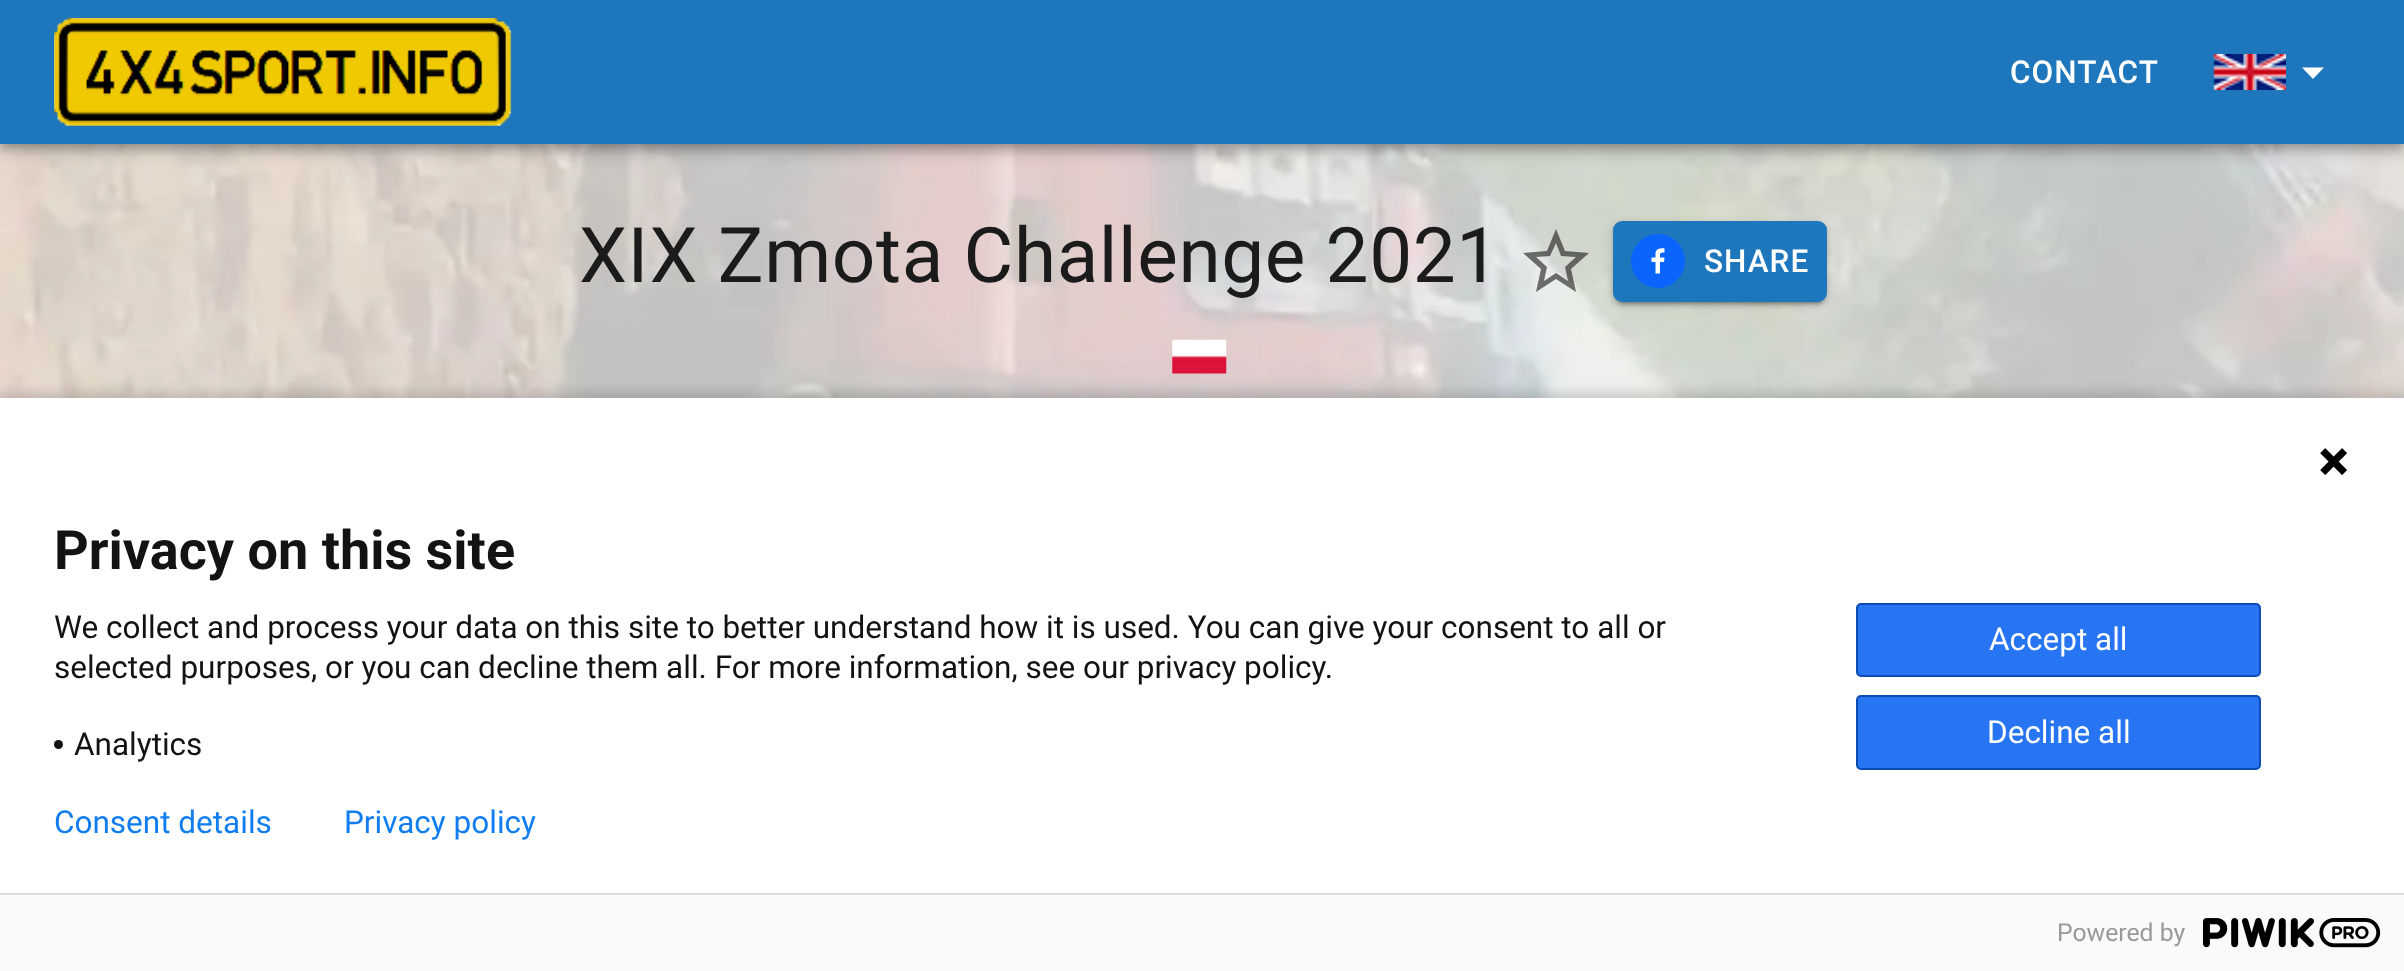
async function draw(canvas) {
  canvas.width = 2404;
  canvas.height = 971;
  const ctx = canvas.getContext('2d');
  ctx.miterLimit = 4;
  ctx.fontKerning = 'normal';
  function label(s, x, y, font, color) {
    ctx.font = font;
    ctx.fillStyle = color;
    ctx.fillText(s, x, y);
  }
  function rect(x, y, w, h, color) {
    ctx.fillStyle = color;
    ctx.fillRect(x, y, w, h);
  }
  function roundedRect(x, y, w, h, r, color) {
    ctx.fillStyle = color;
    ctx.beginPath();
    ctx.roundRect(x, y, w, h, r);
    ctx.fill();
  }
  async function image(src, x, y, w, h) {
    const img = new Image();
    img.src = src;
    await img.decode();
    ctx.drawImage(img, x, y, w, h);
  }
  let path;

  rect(0, 0, 2404, 971, '#fff');
  await image('assets/img1.png', 0, 144, 2404, 254);
  ctx.fillStyle = '#0000001f';
  ctx.filter = 'blur(11px)';
  ctx.beginPath();
  ctx.rect(0, 2, 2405, 144);
  ctx.fill();
  ctx.filter = 'none';
  ctx.fillStyle = '#00000024';
  ctx.filter = 'blur(5.5px)';
  ctx.beginPath();
  ctx.rect(0, 9, 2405, 144);
  ctx.fill();
  ctx.filter = 'none';
  ctx.fillStyle = '#00000033';
  ctx.filter = 'blur(4.5px)';
  ctx.beginPath();
  ctx.rect(2, 7, 2401, 139);
  ctx.fill();
  ctx.filter = 'none';
  rect(0, 0, 2404, 144, '#1e77bc');
  await image('assets/img2.png', 54, 18, 458, 108);
  ctx.letterSpacing = '1px';
  label('CONTACT', 2010, 83, '500 31.5px Roboto', '#fff');
  await image('assets/img3.png', 2213, 54, 73, 36);
  path = new Path2D('M2302 67.5L2313 79L2324 67.5Z');
  ctx.fill(path);
  ctx.letterSpacing = '0.6px';
  label('XIX Zmota Challenge 2021', 579, 282, '76.5px Roboto', '#1c1b1b');
  ctx.fillStyle = '#0000008a';
  path = new Path2D('M1589 253L1565 251L1556 229L1547 251L1523 253L1541 269L1536 292L1556 279L1576 292L1571 269ZM1556 273L1544 281L1547 267L1536 257L1550 256L1556 243L1561 256L1576 257L1565 267L1568 281Z');
  ctx.fill(path);
  ctx.fillStyle = '#0000001f';
  ctx.filter = 'blur(5.5px)';
  ctx.beginPath();
  ctx.roundRect(1613, 223, 214, 81, 9);
  ctx.fill();
  ctx.filter = 'none';
  ctx.fillStyle = '#00000024';
  ctx.filter = 'blur(2px)';
  ctx.beginPath();
  ctx.roundRect(1613, 225, 214, 81, 9);
  ctx.fill();
  ctx.filter = 'none';
  ctx.fillStyle = '#00000033';
  ctx.filter = 'blur(1px)';
  ctx.beginPath();
  ctx.roundRect(1618, 232, 205, 72, 5);
  ctx.fill();
  ctx.filter = 'none';
  roundedRect(1613, 221, 214, 81, 9, '#1e77bc');
  ctx.fillStyle = '#0965fe';
  ctx.beginPath();
  ctx.arc(1658, 261, 27, 0, 2 * Math.PI);
  ctx.fill();
  ctx.fillStyle = '#fff';
  path = new Path2D('M1660 273.5V262H1664L1664.5 257.5H1660C1660 253 1659.5 252.5 1664.5 252.5V248.5C1661 248 1656 248.5 1655.5 253V257.5H1651.5V262H1655.5V273.5Z');
  ctx.fill(path);
  ctx.letterSpacing = '1px';
  label('SHARE', 1704, 272, '500 31.5px Roboto', '#fff');
  await image('assets/img4.png', 1172, 339, 55, 35);
  ctx.fillStyle = '#00000024';
  ctx.filter = 'blur(5.5px)';
  ctx.beginPath();
  ctx.rect(-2, 392, 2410, 578);
  ctx.fill();
  ctx.filter = 'none';
  rect(0, 398, 2404, 495, '#fff');
  await image('assets/img5.png', 2320, 448, 27, 27);
  ctx.letterSpacing = '0px';
  label('Privacy on this site', 54, 569, 'bold 54px Roboto', '#131313');
  label('We collect and process your data on this site to better understand how it is used. You can give your consent to all or', 54, 638, '31.5px Roboto', '#131313');
  label('selected purposes, or you can decline them all. For more information, see our privacy policy.', 54, 678, '31.5px Roboto', '#131313');
  ctx.beginPath();
  ctx.arc(58.5, 744.5, 4.5, 0, 2 * Math.PI);
  ctx.fill();
  label('Analytics', 74, 755, '31.5px Roboto', '#131313');
  ctx.fillStyle = '#2775f2';
  ctx.beginPath();
  ctx.roundRect(1857, 604, 403, 72, 4);
  ctx.fill();
  ctx.strokeStyle = '#0b4bb3';
  ctx.lineWidth = 2;
  ctx.stroke();
  label('Accept all', 1989, 650, '31.5px Roboto', '#fff');
  ctx.fillStyle = '#2775f2';
  ctx.beginPath();
  ctx.roundRect(1857, 696, 403, 73, 4);
  ctx.fill();
  ctx.stroke();
  label('Decline all', 1987, 743, '31.5px Roboto', '#fff');
  label('Consent details', 54, 833, '31.5px Roboto', '#107ef1');
  label('Privacy policy', 344, 833, '31.5px Roboto', '#107ef1');
  rect(0, 895, 2404, 76, '#fafafa');
  rect(0, 893, 2404, 2, '#ddd');
  label('Powered by', 2057, 941, '24.75px Roboto', '#999');
  await image('assets/img6.png', 2203, 918, 178, 30);
}

draw(document.querySelector('canvas'));
